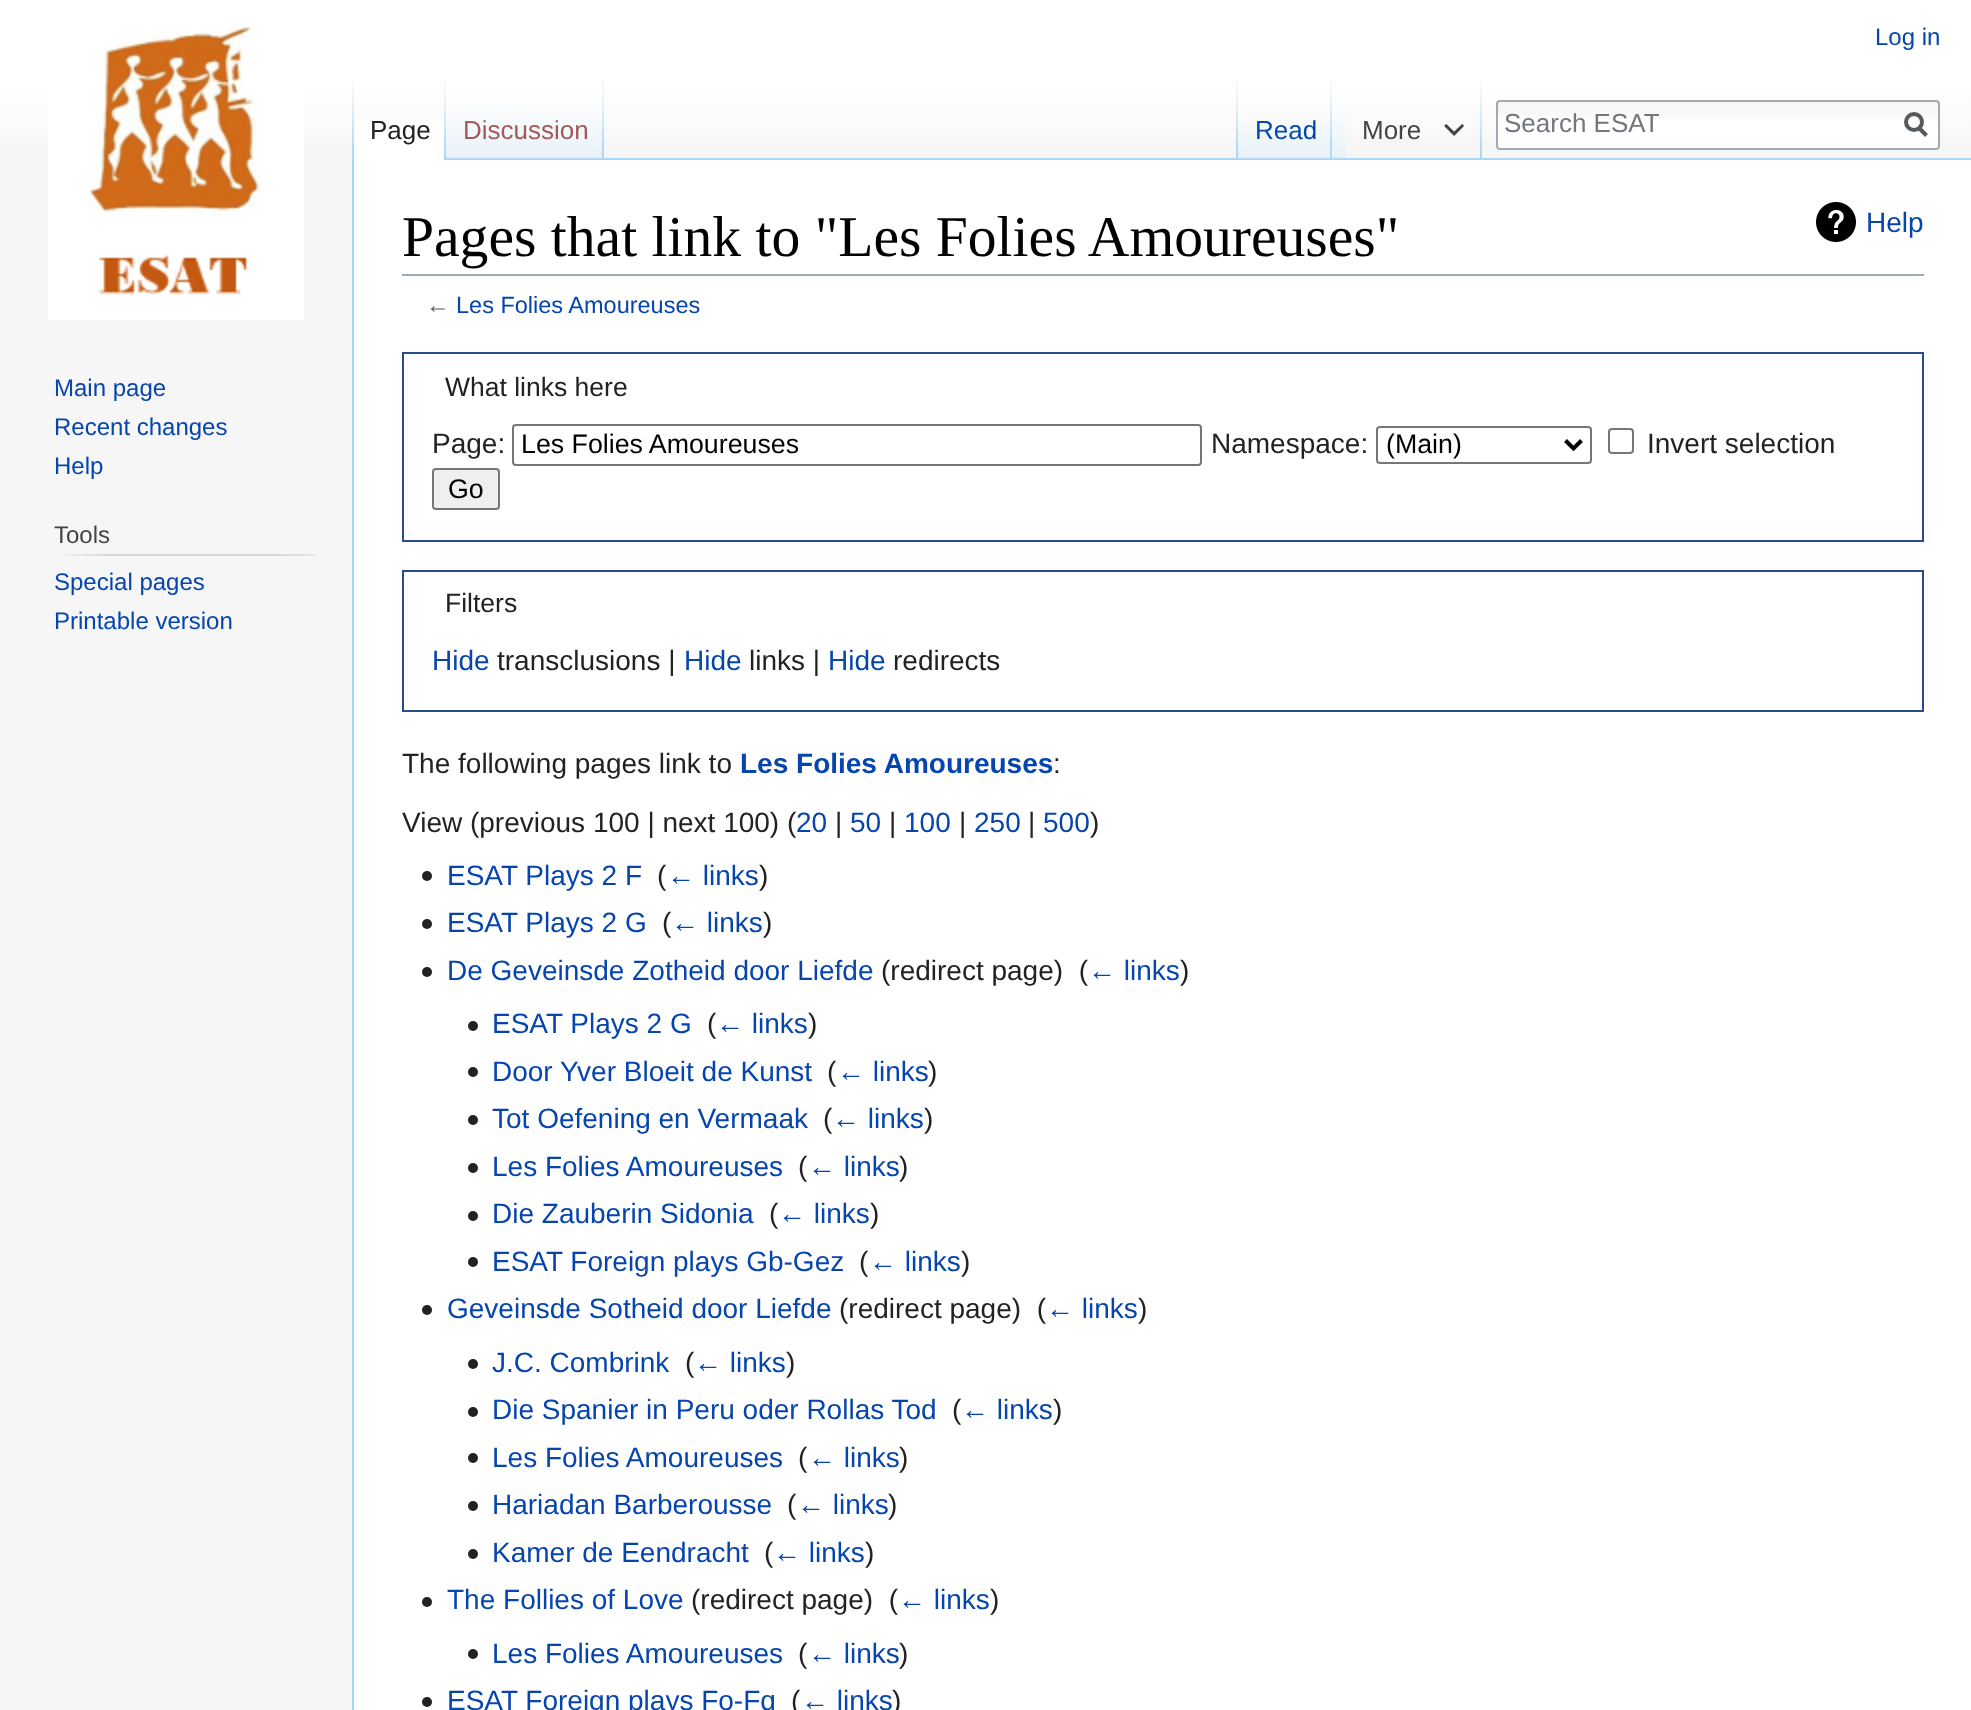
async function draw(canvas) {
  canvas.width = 1971;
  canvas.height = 1710;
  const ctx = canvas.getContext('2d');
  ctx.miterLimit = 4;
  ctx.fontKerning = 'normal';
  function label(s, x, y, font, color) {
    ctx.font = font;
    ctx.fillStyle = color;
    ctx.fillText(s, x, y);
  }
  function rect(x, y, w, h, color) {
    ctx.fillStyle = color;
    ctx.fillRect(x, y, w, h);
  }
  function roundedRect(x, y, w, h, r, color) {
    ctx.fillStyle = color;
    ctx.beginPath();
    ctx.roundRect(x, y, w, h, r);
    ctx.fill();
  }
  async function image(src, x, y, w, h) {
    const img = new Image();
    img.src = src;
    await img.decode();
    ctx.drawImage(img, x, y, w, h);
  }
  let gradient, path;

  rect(0, 0, 1971, 1710, '#f6f6f6');
  gradient = ctx.createLinearGradient(986, 0, 986, 160);
  gradient.addColorStop(0.5, '#fff');
  gradient.addColorStop(1, '#f6f6f6');
  ctx.fillStyle = gradient;
  ctx.fillRect(0, 0, 1971, 138);
  label('Log in', 1875, 45, '24px Liberation Sans', '#0645ad');
  await image('assets/img1.png', 352, 80, 2, 78);
  rect(354, 120, 90, 40, '#fff');
  await image('assets/img2.png', 444, 80, 2, 80);
  label('Page', 370, 139, '26px Liberation Sans', '#222');
  rect(446, 158, 1525, 2, '#a7d7f9');
  await image('assets/img3.png', 446, 80, 156, 79);
  await image('assets/img4.png', 602, 80, 2, 79);
  label('Discussion', 463, 139, '26px Liberation Sans', '#a55858');
  await image('assets/img1.png', 1236, 80, 2, 78);
  await image('assets/img5.png', 1238, 123, 92, 36);
  await image('assets/img4.png', 1330, 80, 2, 79);
  label('Read', 1255, 139, '26px Liberation Sans', '#0645ad');
  await image('assets/img6.png', 1332, 80, 14, 79);
  await image('assets/img1.png', 1480, 80, 2, 78);
  label('More', 1362, 139, '26px Liberation Sans', '#444');
  await image('assets/img7.png', 1444, 124, 20, 12);
  roundedRect(1496, 100, 444, 50, 4, '#fff');
  await image('assets/img8.png', 1496, 102, 444, 17);
  ctx.beginPath();
  ctx.roundRect(1497, 101, 442, 48, 3);
  ctx.strokeStyle = '#a2a9b1';
  ctx.lineWidth = 2;
  ctx.stroke();
  label('Search ESAT', 1504, 132, '26px Liberation Sans', '#72777d');
  path = new Path2D('M1926.5 135.5L1918.5 127.5');
  ctx.strokeStyle = '#54595d';
  ctx.lineWidth = 4;
  ctx.stroke(path);
  ctx.beginPath();
  ctx.arc(1914, 122, 8, 0, 2 * Math.PI);
  ctx.stroke();
  await image('assets/img9.png', 48, 22, 256, 298);
  label('Main page', 54, 396, '24px Liberation Sans', '#0645ad');
  label('Recent changes', 54, 435, '24px Liberation Sans', '#0645ad');
  label('Help', 54, 474, '24px Liberation Sans', '#0645ad');
  label('Tools', 54, 543, '24px Liberation Sans', '#444');
  await image('assets/img10.png', 59, 554, 257, 2);
  label('Special pages', 54, 590, '24px Liberation Sans', '#0645ad');
  label('Printable version', 54, 629, '24px Liberation Sans', '#0645ad');
  rect(354, 160, 1617, 1550, '#fff');
  rect(352, 158, 2, 1552, '#a7d7f9');
  rect(402, 274, 1522, 2, '#a2a9b1');
  label('Pages that link to "Les Folies Amoureuses"', 402, 256, '57.6px Liberation Serif', '#000');
  await image('assets/img11.png', 1816, 202, 40, 40);
  label('Help', 1866, 232, '28px Liberation Sans', '#0645ad');
  label('←', 426, 313, '23.5px Liberation Sans', '#54595d');
  label('Les Folies Amoureuses', 456, 313, '23.5px Liberation Sans', '#0645ad');
  ctx.strokeStyle = '#2a4b8d';
  ctx.lineWidth = 2;
  ctx.strokeRect(403, 353, 1520, 188);
  label('What links here', 445, 396, '26.5px Liberation Sans', '#222');
  label('Page:', 432, 453, '28px Liberation Sans', '#222');
  ctx.beginPath();
  ctx.roundRect(513, 425, 688, 40, 3);
  ctx.strokeStyle = '#767676';
  ctx.stroke();
  label('Les Folies Amoureuses', 521, 453, '26.75px Liberation Sans', '#000');
  label('Namespace:', 1211, 453, '28px Liberation Sans', '#222');
  ctx.beginPath();
  ctx.roundRect(1377, 427, 214, 36, 3);
  ctx.stroke();
  path = new Path2D('M1565.5 440.5L1573.5 448.5L1581.5 440.5');
  ctx.strokeStyle = '#000';
  ctx.lineWidth = 4;
  ctx.stroke(path);
  label('(Main)', 1386, 453, '26.75px Liberation Sans', '#000');
  ctx.beginPath();
  ctx.roundRect(1609, 429, 24, 24, 3);
  ctx.strokeStyle = '#767676';
  ctx.lineWidth = 2;
  ctx.stroke();
  label('Invert selection', 1647, 453, '28px Liberation Sans', '#222');
  ctx.fillStyle = '#efefef';
  ctx.beginPath();
  ctx.roundRect(433, 469, 66, 40, 3);
  ctx.fill();
  ctx.stroke();
  label('Go', 448, 498, '26.75px Liberation Sans', '#000');
  ctx.strokeStyle = '#2a4b8d';
  ctx.strokeRect(403, 571, 1520, 140);
  label('Filters', 445, 612, '26.5px Liberation Sans', '#222');
  label('Hide', 432, 670, '28px Liberation Sans', '#0645ad');
  label('transclusions |', 497, 670, '28px Liberation Sans', '#222');
  label('Hide', 684, 670, '28px Liberation Sans', '#0645ad');
  label('links |', 749, 670, '28px Liberation Sans', '#222');
  label('Hide', 828, 670, '28px Liberation Sans', '#0645ad');
  label('redirects', 893, 670, '28px Liberation Sans', '#222');
  label('The following pages link to', 402, 773, '28px Liberation Sans', '#222');
  label('Les Folies Amoureuses', 740, 773, 'bold 28px Liberation Sans', '#0645ad');
  label(':', 1053, 773, '28px Liberation Sans', '#222');
  label('View (previous 100 | next 100) (', 402, 832, '28px Liberation Sans', '#222');
  label('20', 796, 832, '28px Liberation Sans', '#0645ad');
  label('|', 835, 832, '28px Liberation Sans', '#222');
  label('50', 850, 832, '28px Liberation Sans', '#0645ad');
  label('|', 889, 832, '28px Liberation Sans', '#222');
  label('100', 904, 832, '28px Liberation Sans', '#0645ad');
  label('|', 959, 832, '28px Liberation Sans', '#222');
  label('250', 974, 832, '28px Liberation Sans', '#0645ad');
  label('|', 1028, 832, '28px Liberation Sans', '#222');
  label('500', 1043, 832, '28px Liberation Sans', '#0645ad');
  label(')', 1090, 832, '28px Liberation Sans', '#222');
  await image('assets/img12.png', 422, 871, 10, 10);
  label('ESAT Plays 2 F', 447, 885, '28px Liberation Sans', '#0645ad');
  label('(', 657, 885, '28px Liberation Sans', '#222');
  label('← links', 667, 885, '28px Liberation Sans', '#0645ad');
  label(')', 759, 885, '28px Liberation Sans', '#222');
  await image('assets/img12.png', 422, 919, 10, 10);
  label('ESAT Plays 2 G', 447, 932, '28px Liberation Sans', '#0645ad');
  label('(', 662, 932, '28px Liberation Sans', '#222');
  label('← links', 671, 932, '28px Liberation Sans', '#0645ad');
  label(')', 763, 932, '28px Liberation Sans', '#222');
  await image('assets/img12.png', 422, 967, 10, 10);
  label('De Geveinsde Zotheid door Liefde', 447, 980, '28px Liberation Sans', '#0645ad');
  label('(redirect page)  (', 881, 980, '28px Liberation Sans', '#222');
  label('← links', 1088, 980, '28px Liberation Sans', '#0645ad');
  label(')', 1180, 980, '28px Liberation Sans', '#222');
  await image('assets/img12.png', 468, 1021, 10, 10);
  label('ESAT Plays 2 G', 492, 1033, '28px Liberation Sans', '#0645ad');
  label('(', 707, 1033, '28px Liberation Sans', '#222');
  label('← links', 716, 1033, '28px Liberation Sans', '#0645ad');
  label(')', 808, 1033, '28px Liberation Sans', '#222');
  await image('assets/img12.png', 468, 1067, 10, 10);
  label('Door Yver Bloeit de Kunst', 492, 1081, '28px Liberation Sans', '#0645ad');
  label('(', 827, 1081, '28px Liberation Sans', '#222');
  label('← links', 837, 1081, '28px Liberation Sans', '#0645ad');
  label(')', 928, 1081, '28px Liberation Sans', '#222');
  await image('assets/img12.png', 468, 1115, 10, 10);
  label('Tot Oefening en Vermaak', 492, 1128, '28px Liberation Sans', '#0645ad');
  label('(', 823, 1128, '28px Liberation Sans', '#222');
  label('← links', 832, 1128, '28px Liberation Sans', '#0645ad');
  label(')', 924, 1128, '28px Liberation Sans', '#222');
  await image('assets/img12.png', 468, 1163, 10, 10);
  label('Les Folies Amoureuses', 492, 1176, '28px Liberation Sans', '#0645ad');
  label('(', 798, 1176, '28px Liberation Sans', '#222');
  label('← links', 808, 1176, '28px Liberation Sans', '#0645ad');
  label(')', 899, 1176, '28px Liberation Sans', '#222');
  await image('assets/img12.png', 468, 1211, 10, 10);
  label('Die Zauberin Sidonia', 492, 1223, '28px Liberation Sans', '#0645ad');
  label('(', 769, 1223, '28px Liberation Sans', '#222');
  label('← links', 778, 1223, '28px Liberation Sans', '#0645ad');
  label(')', 870, 1223, '28px Liberation Sans', '#222');
  await image('assets/img12.png', 468, 1257, 10, 10);
  label('ESAT Foreign plays Gb-Gez', 492, 1271, '28px Liberation Sans', '#0645ad');
  label('(', 859, 1271, '28px Liberation Sans', '#222');
  label('← links', 869, 1271, '28px Liberation Sans', '#0645ad');
  label(')', 961, 1271, '28px Liberation Sans', '#222');
  await image('assets/img12.png', 422, 1305, 10, 10);
  label('Geveinsde Sotheid door Liefde', 447, 1318, '28px Liberation Sans', '#0645ad');
  label('(redirect page)  (', 839, 1318, '28px Liberation Sans', '#222');
  label('← links', 1046, 1318, '28px Liberation Sans', '#0645ad');
  label(')', 1138, 1318, '28px Liberation Sans', '#222');
  await image('assets/img12.png', 468, 1359, 10, 10);
  label('J.C. Combrink', 492, 1372, '28px Liberation Sans', '#0645ad');
  label('(', 685, 1372, '28px Liberation Sans', '#222');
  label('← links', 694, 1372, '28px Liberation Sans', '#0645ad');
  label(')', 786, 1372, '28px Liberation Sans', '#222');
  await image('assets/img12.png', 468, 1407, 10, 10);
  label('Die Spanier in Peru oder Rollas Tod', 492, 1419, '28px Liberation Sans', '#0645ad');
  label('(', 952, 1419, '28px Liberation Sans', '#222');
  label('← links', 961, 1419, '28px Liberation Sans', '#0645ad');
  label(')', 1053, 1419, '28px Liberation Sans', '#222');
  await image('assets/img12.png', 468, 1453, 10, 10);
  label('Les Folies Amoureuses', 492, 1467, '28px Liberation Sans', '#0645ad');
  label('(', 798, 1467, '28px Liberation Sans', '#222');
  label('← links', 808, 1467, '28px Liberation Sans', '#0645ad');
  label(')', 899, 1467, '28px Liberation Sans', '#222');
  await image('assets/img12.png', 468, 1501, 10, 10);
  label('Hariadan Barberousse', 492, 1514, '28px Liberation Sans', '#0645ad');
  label('(', 787, 1514, '28px Liberation Sans', '#222');
  label('← links', 797, 1514, '28px Liberation Sans', '#0645ad');
  label(')', 888, 1514, '28px Liberation Sans', '#222');
  await image('assets/img12.png', 468, 1549, 10, 10);
  label('Kamer de Eendracht', 492, 1562, '28px Liberation Sans', '#0645ad');
  label('(', 764, 1562, '28px Liberation Sans', '#222');
  label('← links', 773, 1562, '28px Liberation Sans', '#0645ad');
  label(')', 865, 1562, '28px Liberation Sans', '#222');
  await image('assets/img12.png', 422, 1597, 10, 10);
  label('The Follies of Love', 447, 1609, '28px Liberation Sans', '#0645ad');
  label('(redirect page)  (', 691, 1609, '28px Liberation Sans', '#222');
  label('← links', 898, 1609, '28px Liberation Sans', '#0645ad');
  label(')', 990, 1609, '28px Liberation Sans', '#222');
  await image('assets/img12.png', 468, 1649, 10, 10);
  label('Les Folies Amoureuses', 492, 1663, '28px Liberation Sans', '#0645ad');
  label('(', 798, 1663, '28px Liberation Sans', '#222');
  label('← links', 808, 1663, '28px Liberation Sans', '#0645ad');
  label(')', 899, 1663, '28px Liberation Sans', '#222');
  await image('assets/img12.png', 422, 1697, 10, 10);
  label('ESAT Foreign plays Fo-Fq', 447, 1710, '28px Liberation Sans', '#0645ad');
  label('(', 791, 1710, '28px Liberation Sans', '#222');
  label('← links', 801, 1710, '28px Liberation Sans', '#0645ad');
  label(')', 892, 1710, '28px Liberation Sans', '#222');
}

draw(document.querySelector('canvas'));
